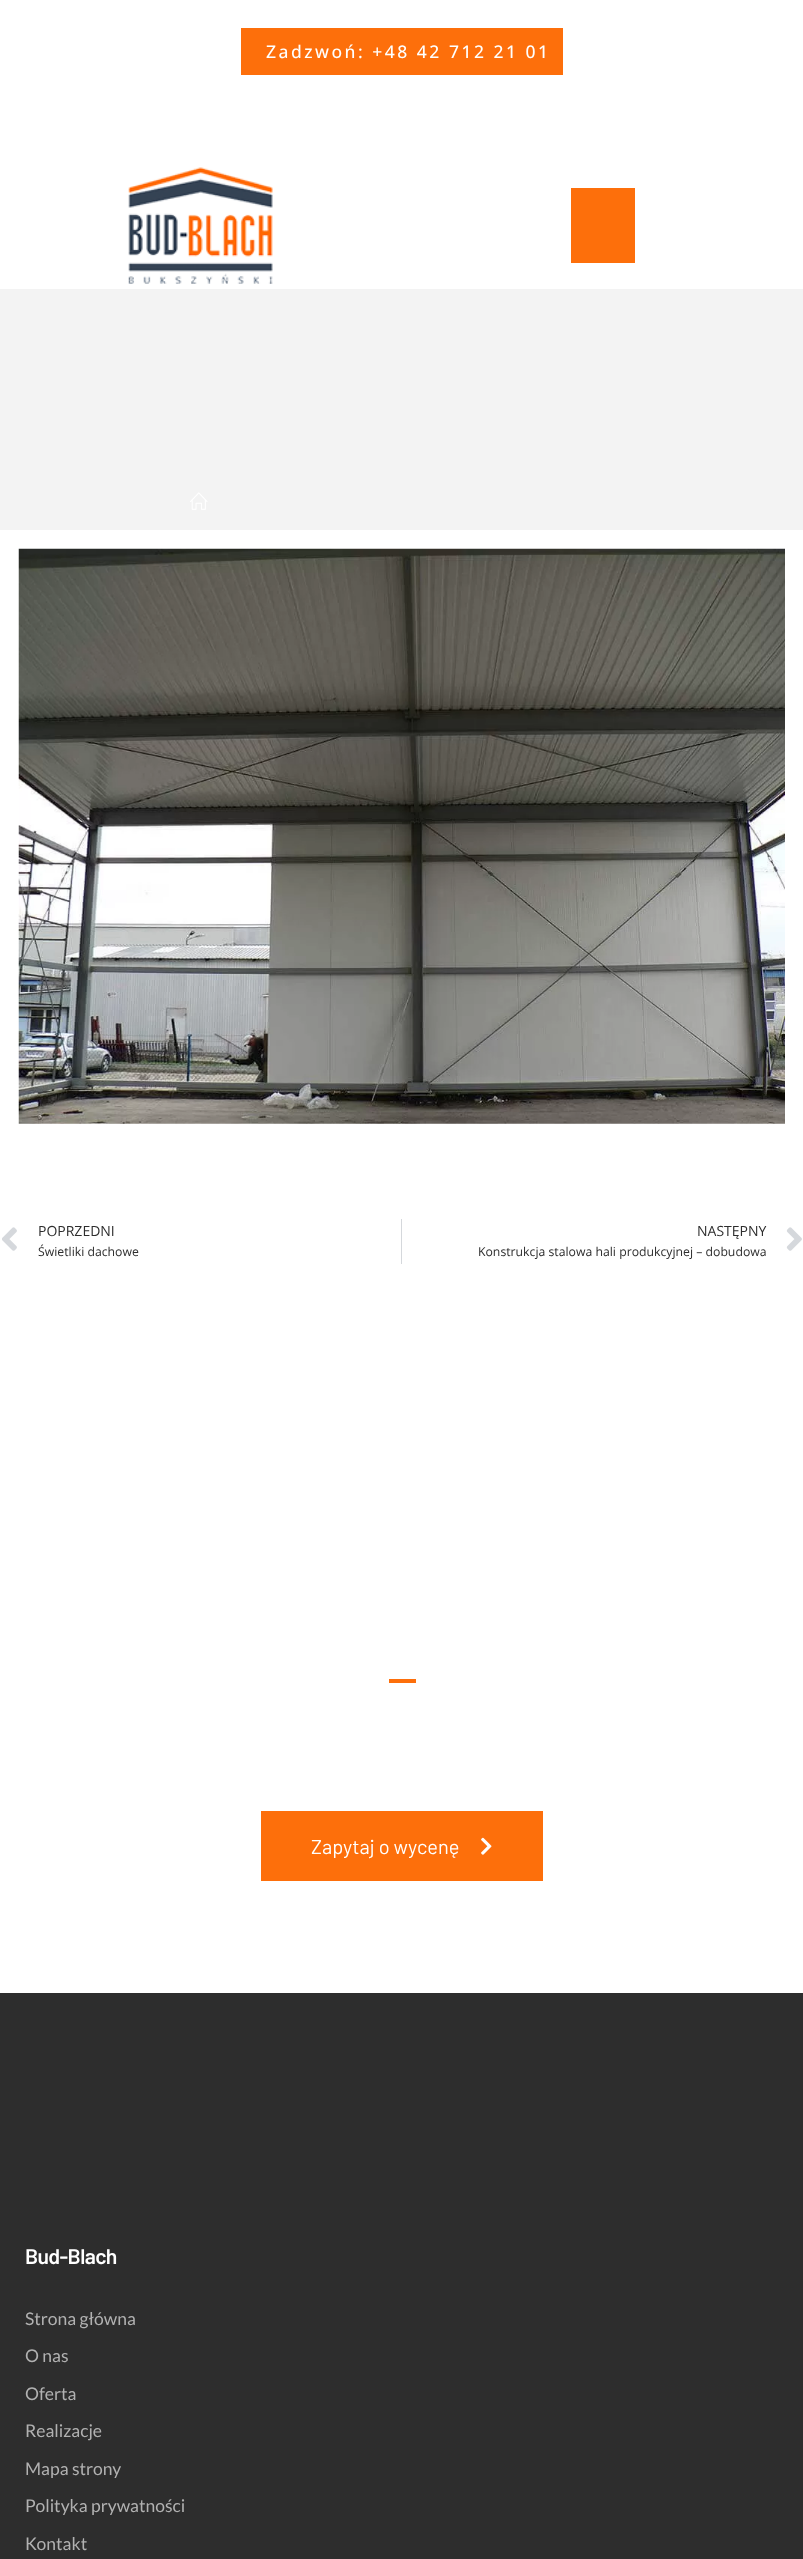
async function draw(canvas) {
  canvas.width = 803;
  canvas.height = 2559;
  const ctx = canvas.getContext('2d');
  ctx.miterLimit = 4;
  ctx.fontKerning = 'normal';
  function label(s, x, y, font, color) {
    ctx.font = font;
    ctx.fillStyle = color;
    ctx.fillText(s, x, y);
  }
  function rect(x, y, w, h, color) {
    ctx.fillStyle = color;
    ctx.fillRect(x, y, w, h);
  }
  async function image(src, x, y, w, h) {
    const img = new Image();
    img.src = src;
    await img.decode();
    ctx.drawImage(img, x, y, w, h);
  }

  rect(0, 0, 803, 2559, '#fff');
  rect(241, 28, 322, 47, '#fd6f0b');
  ctx.letterSpacing = '2.5px';
  label('Zadzwoń: +48 42 712 21 01', 266, 58, '500 17.5px Open Sans', '#fff');
  await image('assets/img1.png', 128, 167, 145, 117);
  rect(571, 188, 64, 75, '#fd6f0b');
  rect(0, 289, 803, 241, '#f3f3f3');
  await image('assets/img2.png', 190, 492, 18, 18);
  await image('assets/img3.png', 18, 548, 767, 576);
  await image('assets/img4.png', 2, 1227, 15, 24);
  ctx.letterSpacing = '0px';
  label('POPRZEDNI', 38, 1236, '14px Open Sans', '#2d2d2d');
  label('Świetliki dachowe', 38, 1256, '12.25px Open Sans', '#2d2d2d');
  rect(401, 1219, 1, 45, '#d5d8dc');
  label('NASTĘPNY', 697, 1236, '14px Open Sans', '#2d2d2d');
  label('Konstrukcja stalowa hali produkcyjnej – dobudowa', 478, 1256, '12.25px Open Sans', '#2d2d2d');
  await image('assets/img5.png', 786, 1227, 16, 24);
  rect(389, 1679, 27, 4, '#fd6f0b');
  rect(261, 1811, 282, 70, '#fd6f0b');
  label('Zapytaj o wycenę', 311, 1854, '20px Barlow', '#fff');
  await image('assets/img6.png', 481, 1837, 11, 18);
  rect(0, 1993, 803, 566, '#2d2d2d');
  ctx.letterSpacing = '-0.6px';
  label('Bud-Blach', 25, 2264, '600 21.25px Barlow', '#fff');
  ctx.letterSpacing = '0px';
  label('Strona główna', 25, 2325, '17.5px Lato', '#b1b1b1');
  label('O nas', 25, 2362, '17.5px Lato', '#b1b1b1');
  label('Oferta', 25, 2400, '17.5px Lato', '#b1b1b1');
  label('Realizacje', 25, 2437, '17.5px Lato', '#b1b1b1');
  label('Mapa strony', 25, 2475, '17.5px Lato', '#b1b1b1');
  label('Polityka prywatności', 25, 2512, '17.5px Lato', '#b1b1b1');
  label('Kontakt', 25, 2550, '17.5px Lato', '#b1b1b1');
}

draw(document.querySelector('canvas'));
